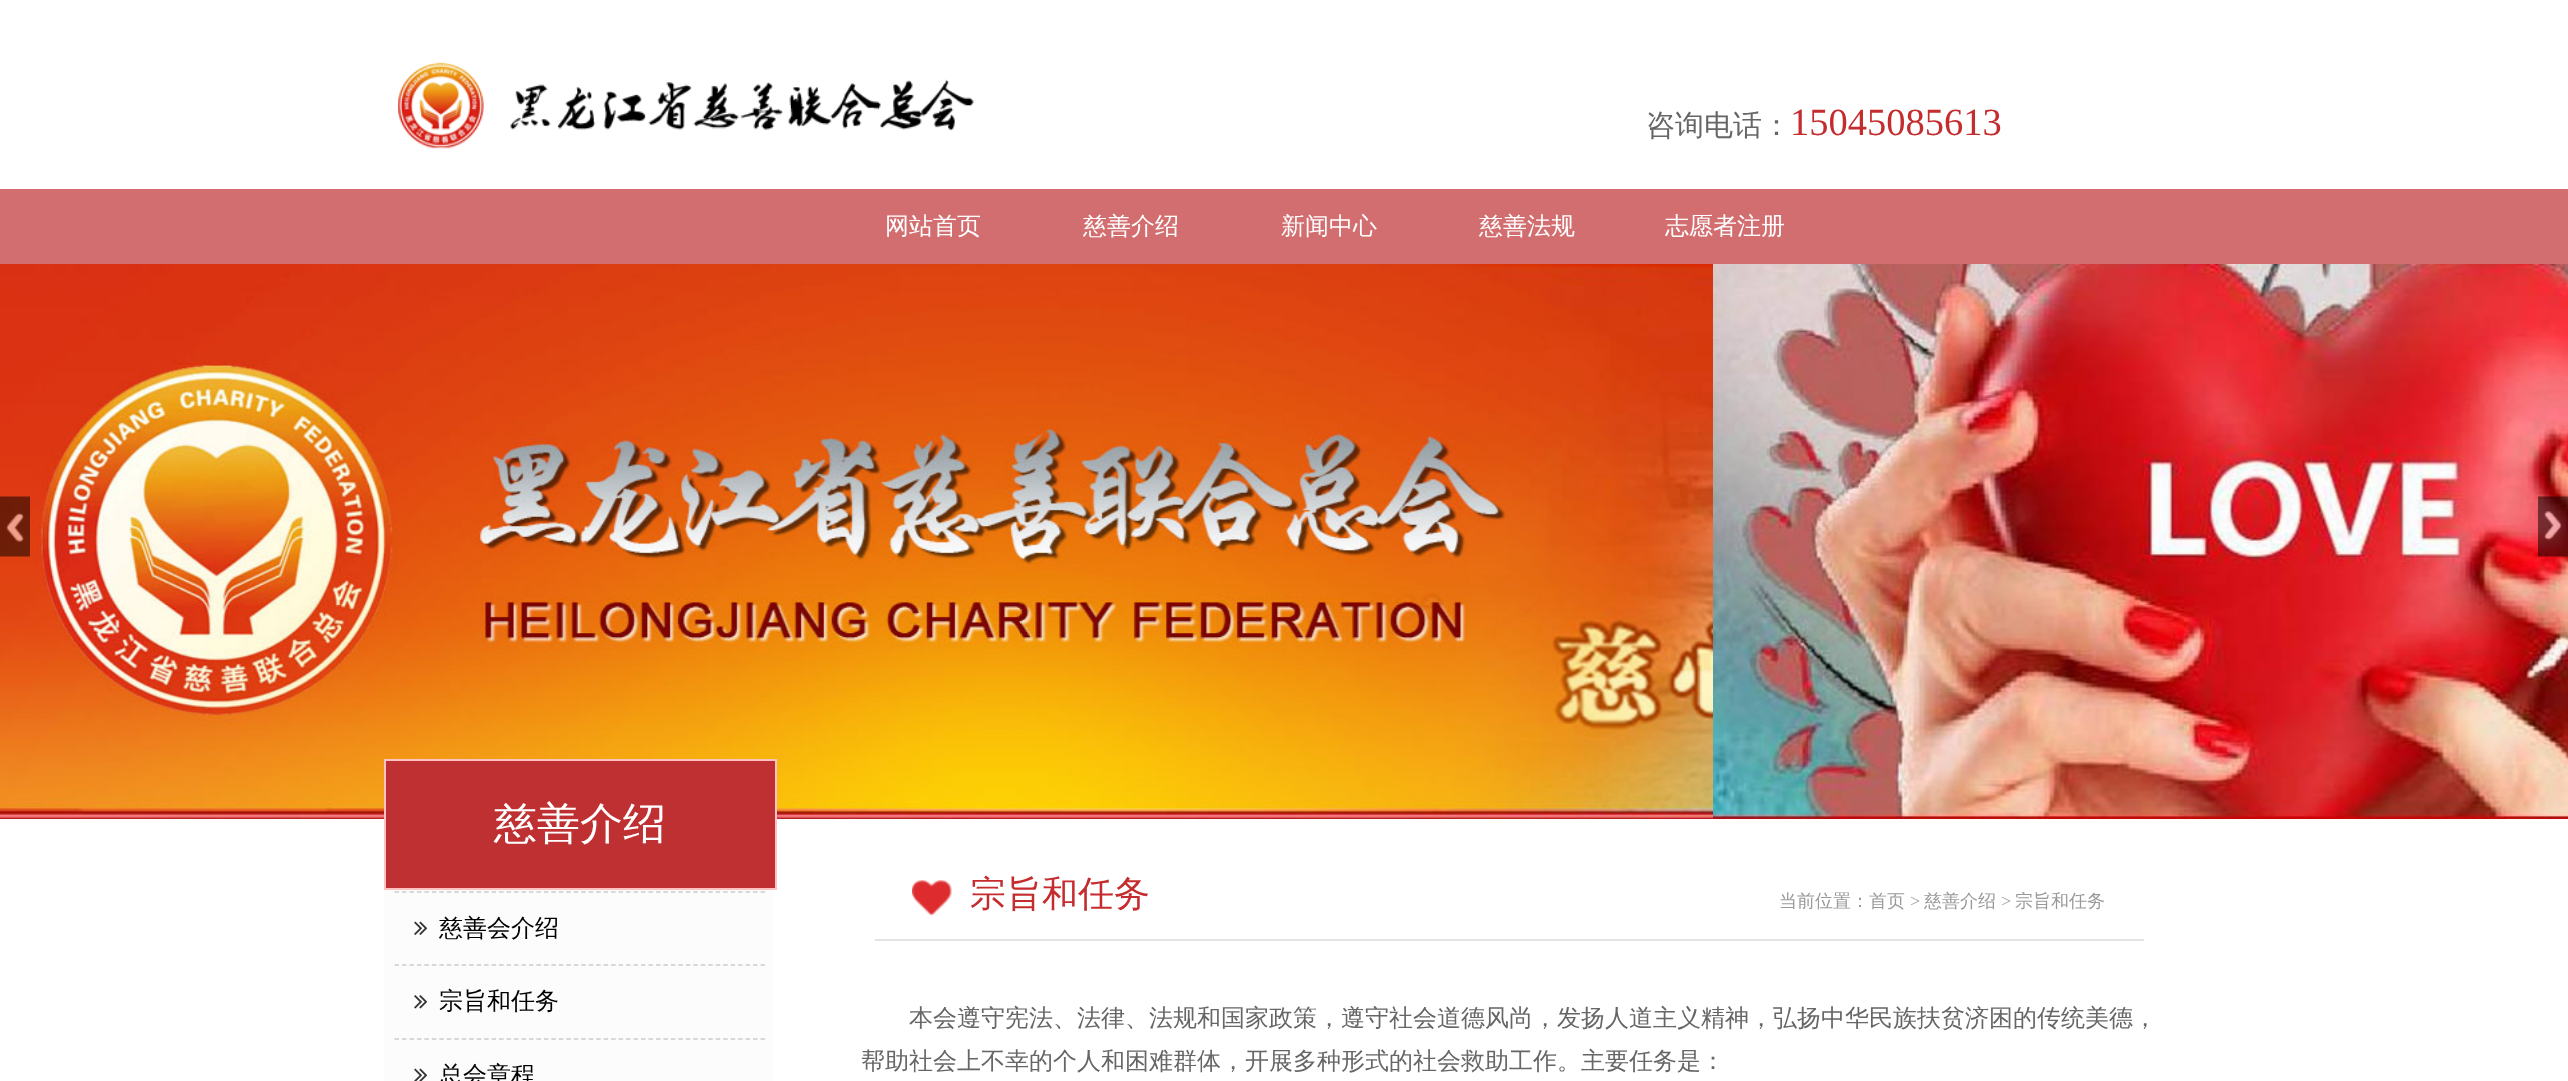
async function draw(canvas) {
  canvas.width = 2568;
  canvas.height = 1081;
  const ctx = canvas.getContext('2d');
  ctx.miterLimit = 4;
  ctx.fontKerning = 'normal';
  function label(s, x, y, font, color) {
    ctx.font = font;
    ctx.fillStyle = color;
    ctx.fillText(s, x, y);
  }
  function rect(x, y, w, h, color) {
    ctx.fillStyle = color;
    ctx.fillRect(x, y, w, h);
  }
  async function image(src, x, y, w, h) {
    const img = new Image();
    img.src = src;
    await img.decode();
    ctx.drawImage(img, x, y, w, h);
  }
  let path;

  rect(0, 0, 2568, 1081, '#fff');
  await image('assets/img1.png', 398, 62, 576, 87);
  label('咨询电话：', 1646, 135, '500 29px WenQuanYi Zen Hei', '#666');
  label('15045085613', 1790, 135, '38.5px Liberation Serif', '#c42c2e');
  rect(0, 189, 2568, 75, '#d26e70');
  label('网站首页', 885, 234, '500 24px WenQuanYi Zen Hei', '#fff');
  label('慈善介绍', 1083, 234, '500 24px WenQuanYi Zen Hei', '#fff');
  label('新闻中心', 1281, 234, '500 24px WenQuanYi Zen Hei', '#fff');
  label('慈善法规', 1479, 234, '500 24px WenQuanYi Zen Hei', '#fff');
  label('志愿者注册', 1665, 234, '500 24px WenQuanYi Zen Hei', '#fff');
  await image('assets/img2.png', 0, 264, 1713, 555);
  await image('assets/img3.png', 1713, 264, 855, 555);
  await image('assets/img4.png', 0, 496, 30, 61);
  await image('assets/img5.png', 2538, 496, 30, 61);
  rect(384, 890, 390, 191, '#fcfcfc');
  ctx.fillStyle = '#bf3032';
  ctx.beginPath();
  ctx.rect(385, 760, 391, 129);
  ctx.fill();
  ctx.strokeStyle = '#ffc2c3';
  ctx.lineWidth = 2;
  ctx.stroke();
  label('慈善介绍', 494, 838, '500 43px WenQuanYi Zen Hei', '#fff');
  path = new Path2D('M394.5 892H765');
  ctx.strokeStyle = '#cbcbcc';
  ctx.lineWidth = 1.5;
  ctx.setLineDash([4.5, 2.97]);
  ctx.stroke(path);
  path = new Path2D('M394.5 965H765');
  ctx.stroke(path);
  await image('assets/img6.png', 414, 921, 14, 14);
  label('慈善会介绍', 439, 936, '500 24px WenQuanYi Zen Hei', '#000');
  path = new Path2D('M394.5 1039H765');
  ctx.stroke(path);
  await image('assets/img7.png', 414, 995, 14, 14);
  label('宗旨和任务', 439, 1009, '500 24px WenQuanYi Zen Hei', '#000');
  await image('assets/img8.png', 414, 1068, 14, 13);
  label('总会章程', 439, 1083, '500 24px WenQuanYi Zen Hei', '#000');
  rect(875, 939, 1269, 2, '#e3e3e3');
  await image('assets/img9.png', 912, 880, 40, 35);
  label('宗旨和任务', 970, 906, '500 36px WenQuanYi Zen Hei', '#c42c2e');
  label('当前位置：首页', 1779, 907, '500 18px WenQuanYi Zen Hei', '#999');
  label('>', 1910, 907, '18px Liberation Serif', '#999');
  label('慈善介绍', 1924, 907, '500 18px WenQuanYi Zen Hei', '#999');
  label('>', 2001, 907, '18px Liberation Serif', '#999');
  label('宗旨和任务', 2015, 907, '500 18px WenQuanYi Zen Hei', '#999');
  label('本会遵守宪法、法律、法规和国家政策，遵守社会道德风尚，发扬人道主义精神，弘扬中华民族扶贫济困的传统美德，', 909, 1026, '500 24px WenQuanYi Zen Hei', '#666');
  label('帮助社会上不幸的个人和困难群体，开展多种形式的社会救助工作。主要任务是：', 861, 1069, '500 24px WenQuanYi Zen Hei', '#666');
}

draw(document.querySelector('canvas'));
